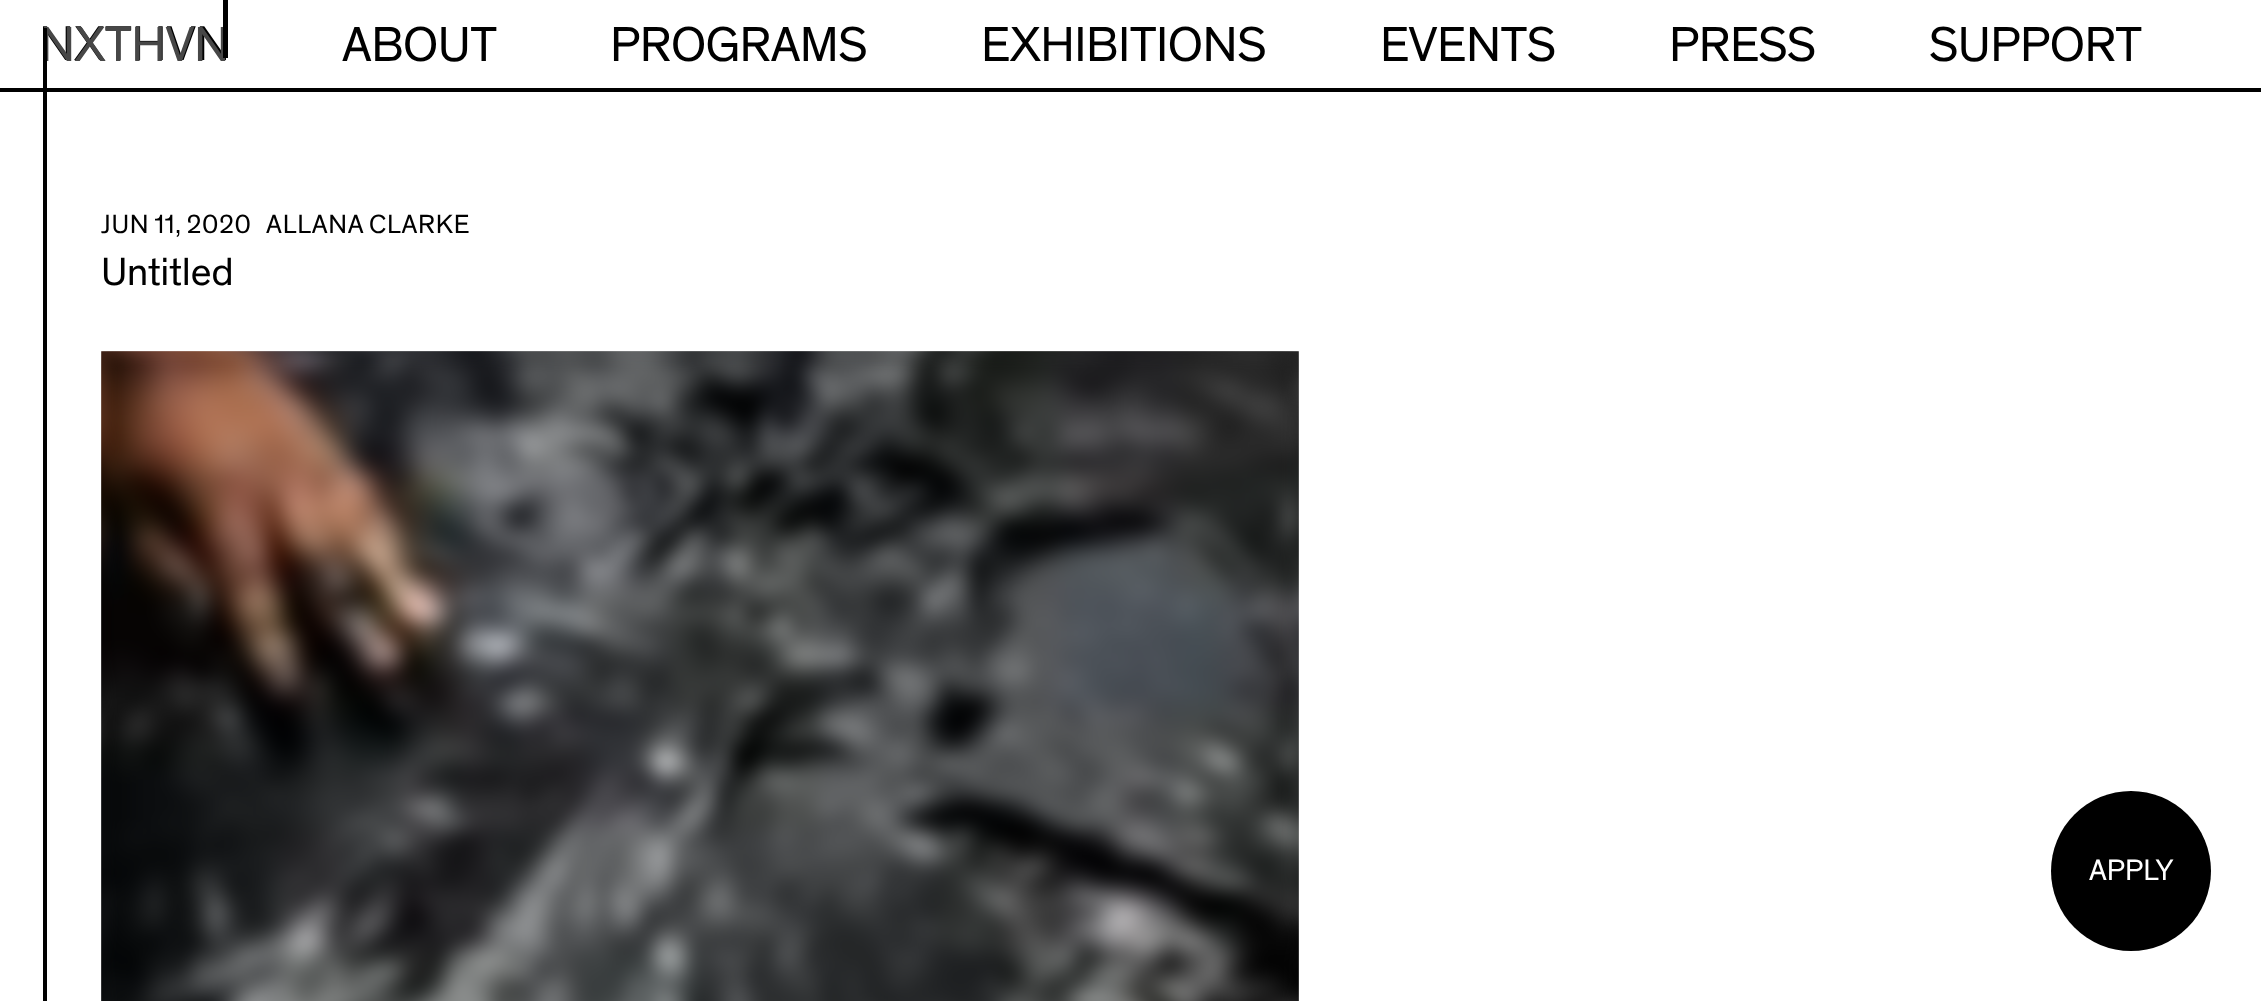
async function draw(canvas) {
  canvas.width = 2261;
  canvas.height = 1001;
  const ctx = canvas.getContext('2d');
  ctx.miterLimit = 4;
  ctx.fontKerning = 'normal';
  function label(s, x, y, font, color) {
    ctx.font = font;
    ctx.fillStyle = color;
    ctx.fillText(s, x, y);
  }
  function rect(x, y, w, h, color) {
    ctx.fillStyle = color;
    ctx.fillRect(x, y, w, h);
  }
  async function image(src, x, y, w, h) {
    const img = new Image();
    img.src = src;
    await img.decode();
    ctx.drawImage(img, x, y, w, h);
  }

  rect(0, 0, 2261, 1001, '#fff');
  rect(0, 88, 2261, 4, '#000');
  await image('assets/img1.png', 43, 26, 183, 34);
  ctx.letterSpacing = '-0.5px';
  label('NXTHVN', 40, 61, '50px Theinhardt', '#474747');
  rect(223, 0, 5, 58, '#000');
  rect(43, 28, 4, 973, '#000');
  label('ABOUT', 342, 61, '50px Theinhardt', '#000');
  label('PROGRAMS', 610, 61, '50px Theinhardt', '#000');
  label('EXHIBITIONS', 981, 61, '50px Theinhardt', '#000');
  label('EVENTS', 1380, 61, '50px Theinhardt', '#000');
  label('PRESS', 1669, 61, '50px Theinhardt', '#000');
  label('SUPPORT', 1929, 61, '50px Theinhardt', '#000');
  ctx.letterSpacing = '0.75px';
  ctx.wordSpacing = '-1px';
  label('JUN 11, 2020', 101, 233, '26.75px Theinhardt', '#000');
  label('ALLANA CLARKE', 266, 233, '26.75px Theinhardt', '#000');
  ctx.letterSpacing = '0px';
  ctx.wordSpacing = '0px';
  label('Untitled', 101, 285, '40px Theinhardt', '#000');
  await image('assets/img2.png', 101, 351, 1198, 650);
  ctx.beginPath();
  ctx.arc(2131, 871, 80, 0, 2 * Math.PI);
  ctx.fill();
  label('APPLY', 2089, 880, '30px Theinhardt', '#fff');
}

draw(document.querySelector('canvas'));
